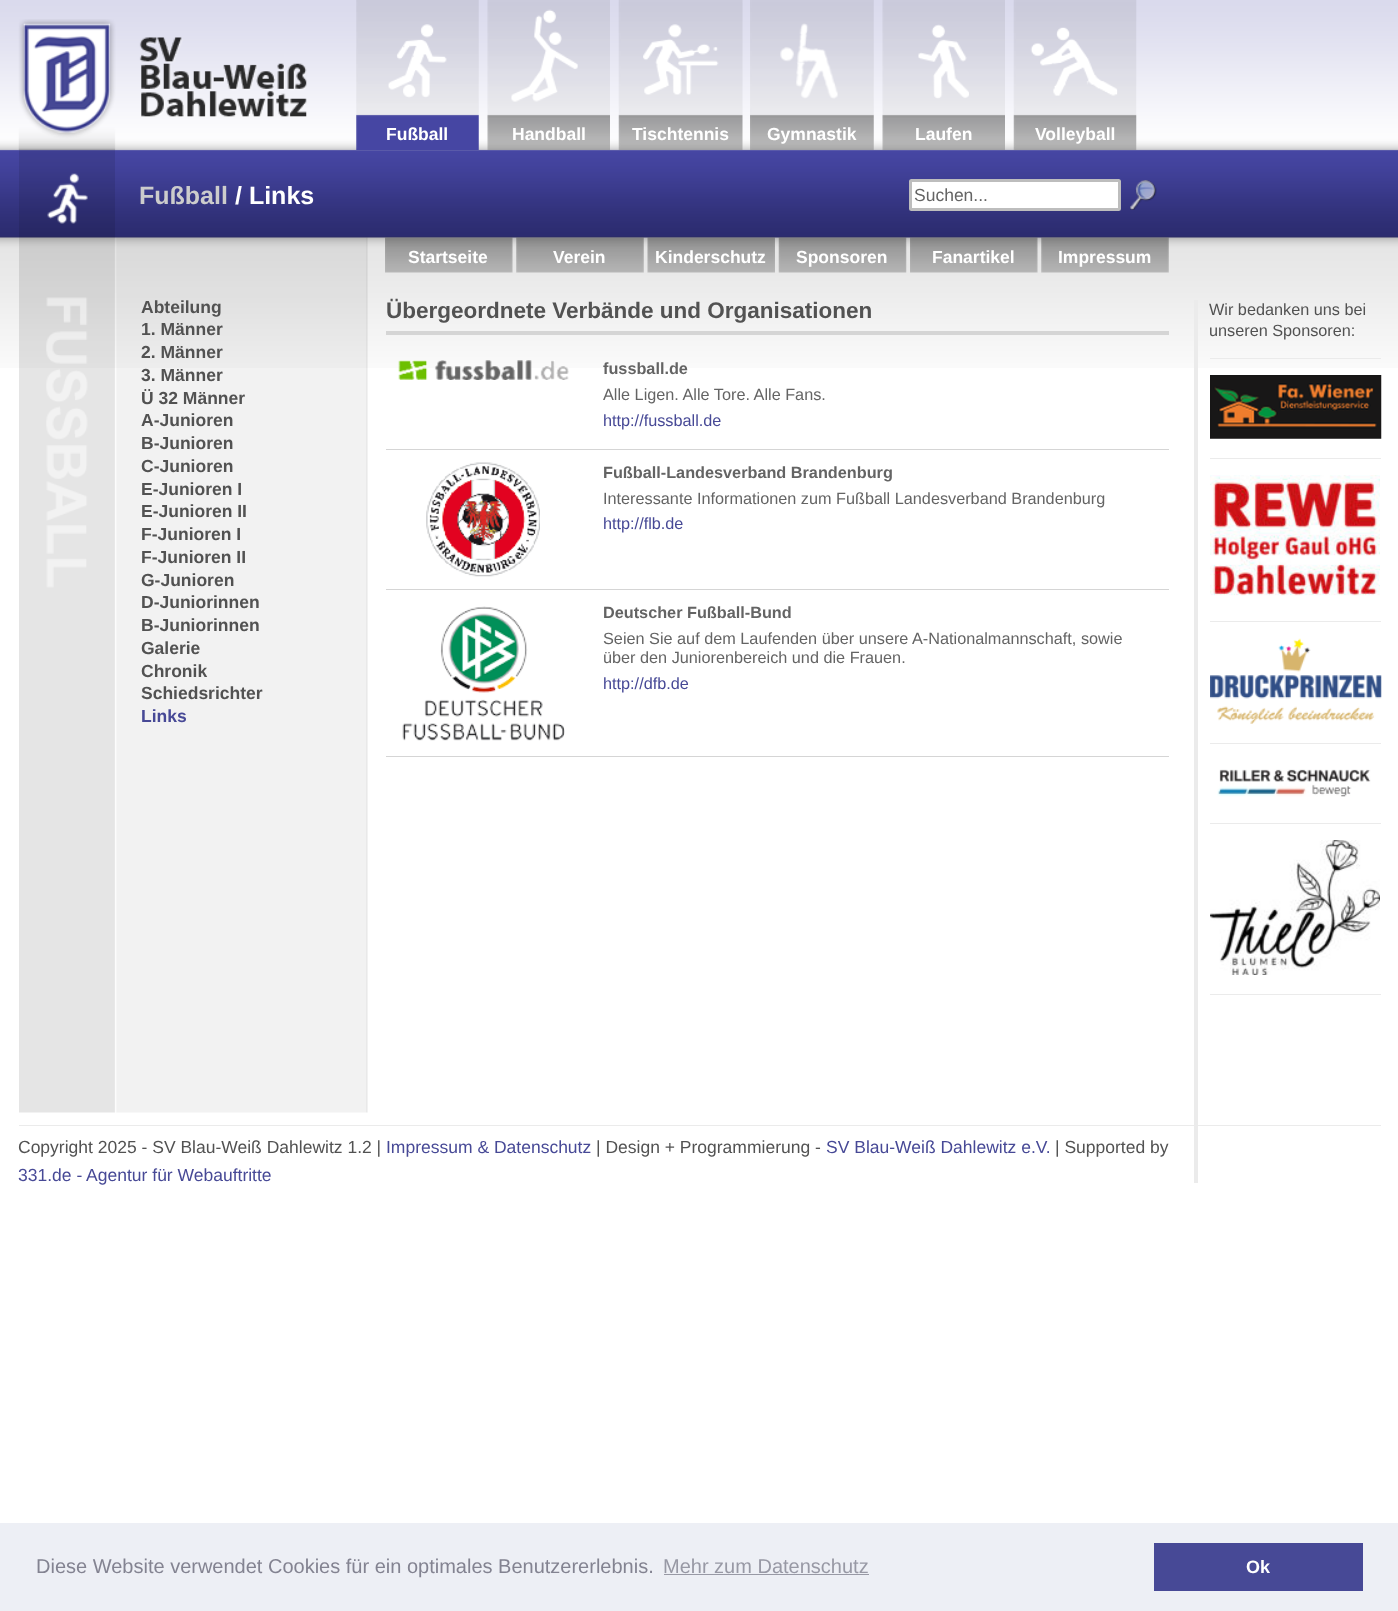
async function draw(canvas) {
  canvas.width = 1398;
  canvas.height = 1611;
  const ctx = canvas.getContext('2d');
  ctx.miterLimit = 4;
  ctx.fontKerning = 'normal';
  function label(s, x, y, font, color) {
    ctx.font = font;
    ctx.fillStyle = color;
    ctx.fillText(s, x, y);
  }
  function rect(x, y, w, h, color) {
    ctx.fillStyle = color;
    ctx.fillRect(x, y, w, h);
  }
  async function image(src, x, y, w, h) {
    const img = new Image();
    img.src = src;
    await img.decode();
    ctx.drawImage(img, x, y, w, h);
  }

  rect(0, 0, 1398, 1611, '#fff');
  await image('assets/img1.png', 0, 0, 1398, 368);
  await image('assets/img2.png', 18, 19, 289, 131);
  await image('assets/img3.png', 356, 0, 123, 150);
  await image('assets/img4.png', 388, 24, 59, 74);
  label('Fußball', 386, 140, 'bold 17.5px Liberation Sans', '#fff');
  await image('assets/img5.png', 487, 0, 123, 150);
  await image('assets/img6.png', 511, 9, 67, 93);
  label('Handball', 512, 140, 'bold 17.5px Liberation Sans', '#fff');
  await image('assets/img7.png', 618, 0, 125, 150);
  await image('assets/img8.png', 643, 24, 76, 71);
  label('Tischtennis', 632, 140, 'bold 17.5px Liberation Sans', '#fff');
  await image('assets/img9.png', 750, 0, 124, 150);
  await image('assets/img10.png', 780, 23, 58, 76);
  label('Gymnastik', 767, 140, 'bold 17.5px Liberation Sans', '#fff');
  await image('assets/img5.png', 882, 0, 123, 150);
  await image('assets/img11.png', 918, 24, 51, 75);
  label('Laufen', 915, 140, 'bold 17.5px Liberation Sans', '#fff');
  await image('assets/img12.png', 1013, 0, 124, 150);
  await image('assets/img13.png', 1030, 27, 88, 69);
  label('Volleyball', 1035, 140, 'bold 17.5px Liberation Sans', '#fff');
  await image('assets/img14.png', 19, 150, 96, 88);
  label('Fußball', 139, 204, 'bold 25px Liberation Sans', '#ccc');
  label('/ Links', 235, 204, 'bold 25px Liberation Sans', '#fff');
  ctx.beginPath();
  ctx.roundRect(910.5, 180.5, 209, 29, 1);
  ctx.fill();
  ctx.strokeStyle = '#bdbdbd';
  ctx.lineWidth = 3;
  ctx.stroke();
  label('Suchen...', 914, 201, '17.5px Liberation Sans', '#646464');
  await image('assets/img15.png', 1130, 180, 27, 30);
  await image('assets/img16.png', 19, 237, 349, 876);
  await image('assets/img17.png', 385, 237, 128, 36);
  label('Startseite', 408, 263, 'bold 17.5px Liberation Sans', '#fff');
  await image('assets/img18.png', 516, 237, 128, 36);
  label('Verein', 553, 263, 'bold 17.5px Liberation Sans', '#fff');
  await image('assets/img19.png', 647, 237, 128, 36);
  label('Kinderschutz', 655, 263, 'bold 17.5px Liberation Sans', '#fff');
  await image('assets/img20.png', 778, 237, 129, 36);
  label('Sponsoren', 796, 263, 'bold 17.5px Liberation Sans', '#fff');
  await image('assets/img17.png', 910, 237, 128, 36);
  label('Fanartikel', 932, 263, 'bold 17.5px Liberation Sans', '#fff');
  await image('assets/img18.png', 1041, 237, 128, 36);
  label('Impressum', 1058, 263, 'bold 17.5px Liberation Sans', '#fff');
  await image('assets/img21.png', 46, 297, 42, 291);
  label('Abteilung', 141, 313, 'bold 17.5px Liberation Sans', '#525252');
  label('1. Männer', 141, 335, 'bold 17.5px Liberation Sans', '#525252');
  label('2. Männer', 141, 358, 'bold 17.5px Liberation Sans', '#525252');
  label('3. Männer', 141, 381, 'bold 17.5px Liberation Sans', '#525252');
  label('Ü 32 Männer', 141, 404, 'bold 17.5px Liberation Sans', '#525252');
  label('A-Junioren', 141, 426, 'bold 17.5px Liberation Sans', '#525252');
  label('B-Junioren', 141, 449, 'bold 17.5px Liberation Sans', '#525252');
  label('C-Junioren', 141, 472, 'bold 17.5px Liberation Sans', '#525252');
  label('E-Junioren I', 141, 495, 'bold 17.5px Liberation Sans', '#525252');
  label('E-Junioren II', 141, 517, 'bold 17.5px Liberation Sans', '#525252');
  label('F-Junioren I', 141, 540, 'bold 17.5px Liberation Sans', '#525252');
  label('F-Junioren II', 141, 563, 'bold 17.5px Liberation Sans', '#525252');
  label('G-Junioren', 141, 586, 'bold 17.5px Liberation Sans', '#525252');
  label('D-Juniorinnen', 141, 608, 'bold 17.5px Liberation Sans', '#525252');
  label('B-Juniorinnen', 141, 631, 'bold 17.5px Liberation Sans', '#525252');
  label('Galerie', 141, 654, 'bold 17.5px Liberation Sans', '#525252');
  label('Chronik', 141, 677, 'bold 17.5px Liberation Sans', '#525252');
  label('Schiedsrichter', 141, 699, 'bold 17.5px Liberation Sans', '#525252');
  label('Links', 141, 722, 'bold 17.5px Liberation Sans', '#474996');
  rect(386, 331, 783, 4, '#d5d5d5');
  label('Übergeordnete Verbände und Organisationen', 386, 318, 'bold 22.5px Liberation Sans', '#525252');
  rect(386, 449, 783, 1, '#d5d5d5');
  await image('assets/img22.png', 398, 360, 171, 20);
  label('fussball.de', 603, 374, 'bold 16.25px Liberation Sans', '#646464');
  label('Alle Ligen. Alle Tore. Alle Fans.', 603, 400, '16.25px Liberation Sans', '#646464');
  label('http://fussball.de', 603, 426, '16.25px Liberation Sans', '#474996');
  rect(386, 589, 783, 1, '#d5d5d5');
  await image('assets/img23.png', 426, 462, 114, 115);
  label('Fußball-Landesverband Brandenburg', 603, 478, 'bold 16.25px Liberation Sans', '#646464');
  label('Interessante Informationen zum Fußball Landesverband Brandenburg', 603, 504, '16.25px Liberation Sans', '#646464');
  label('http://flb.de', 603, 529, '16.25px Liberation Sans', '#474996');
  rect(386, 756, 783, 1, '#d5d5d5');
  await image('assets/img24.png', 402, 606, 163, 135);
  label('Deutscher Fußball-Bund', 603, 618, 'bold 16.25px Liberation Sans', '#646464');
  label('Seien Sie auf dem Laufenden über unsere A-Nationalmannschaft, sowie', 603, 644, '16.25px Liberation Sans', '#646464');
  label('über den Juniorenbereich und die Frauen.', 603, 663, '16.25px Liberation Sans', '#646464');
  label('http://dfb.de', 603, 689, '16.25px Liberation Sans', '#474996');
  rect(19, 1125, 1362, 1, '#ebebeb');
  rect(1194, 300, 4, 883, '#ebebeb');
  label('Wir bedanken uns bei', 1209, 315, '16.25px Liberation Sans', '#525252');
  label('unseren Sponsoren:', 1209, 336, '16.25px Liberation Sans', '#525252');
  rect(1210, 358, 171, 1, '#ebebeb');
  await image('assets/img25.png', 1210, 375, 172, 64);
  rect(1210, 458, 171, 1, '#ebebeb');
  await image('assets/img26.png', 1210, 475, 170, 121);
  rect(1210, 621, 171, 1, '#ebebeb');
  await image('assets/img27.png', 1210, 638, 172, 86);
  rect(1210, 743, 171, 1, '#ebebeb');
  await image('assets/img28.png', 1217, 769, 154, 28);
  rect(1210, 823, 171, 1, '#ebebeb');
  await image('assets/img29.png', 1210, 840, 170, 135);
  rect(1210, 994, 171, 1, '#ebebeb');
  label('Copyright 2025 - SV Blau-Weiß Dahlewitz 1.2 |', 18, 1153, '17.5px Liberation Sans', '#525252');
  label('Impressum & Datenschutz', 386, 1153, '17.5px Liberation Sans', '#474996');
  label('| Design + Programmierung -', 596, 1153, '17.5px Liberation Sans', '#525252');
  label('SV Blau-Weiß Dahlewitz e.V.', 826, 1153, '17.5px Liberation Sans', '#474996');
  label('| Supported by', 1055, 1153, '17.5px Liberation Sans', '#525252');
  label('331.de - Agentur für Webauftritte', 18, 1181, '17.5px Liberation Sans', '#474996');
  rect(0, 1523, 1398, 88, '#edeff5');
  label('Diese Website verwendet Cookies für ein optimales Benutzererlebnis.', 36, 1573, '20px Liberation Sans', '#838391');
  label('Mehr zum Datenschutz', 663, 1573, '20px Liberation Sans', '#9899a5');
  rect(664, 1574, 205, 1, '#9899a5');
  rect(1154, 1543, 209, 48, '#474996');
  label('Ok', 1246, 1573, 'bold 18px Liberation Sans', '#fff');
}

draw(document.querySelector('canvas'));
